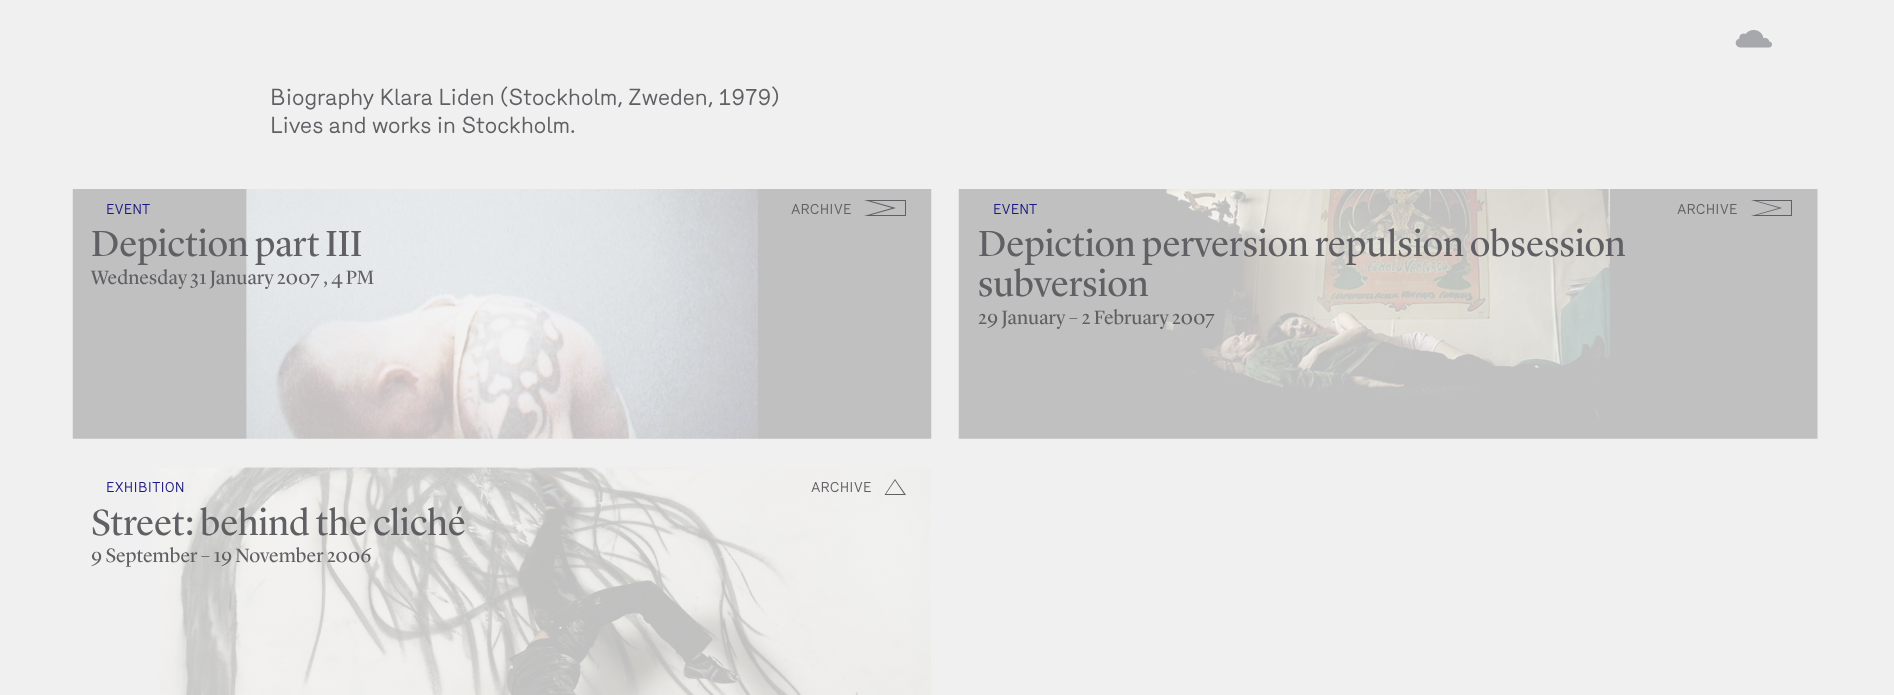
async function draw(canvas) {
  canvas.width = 1894;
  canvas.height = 695;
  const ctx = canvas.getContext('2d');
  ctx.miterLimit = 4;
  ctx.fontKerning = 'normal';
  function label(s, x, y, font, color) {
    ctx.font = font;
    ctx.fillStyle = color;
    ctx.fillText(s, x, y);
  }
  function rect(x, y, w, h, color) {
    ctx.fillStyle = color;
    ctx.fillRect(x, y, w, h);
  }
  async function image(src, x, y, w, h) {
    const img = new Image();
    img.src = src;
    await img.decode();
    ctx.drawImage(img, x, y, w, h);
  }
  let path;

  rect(0, 0, 1894, 695, '#f0f0f0');
  await image('assets/img1.png', 1735, 30, 37, 18);
  label('Biography Klara Liden (Stockholm, Zweden, 1979)', 270, 105, '22.5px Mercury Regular', '#5f5f64');
  label('Lives and works in Stockholm.', 270, 133, '22.5px Mercury Regular', '#5f5f64');
  await image('assets/img2.png', 72, 189, 860, 250);
  label('EVENT', 106, 214, '13.75px Mercury Regular', '#1b187f');
  label('Depiction part III', 91, 256, '37.5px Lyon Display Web', '#5f5f64');
  label('Wednesday 31 January 2007 , 4 PM', 91, 284, '20px Lyon Display Web', '#5f5f64');
  label('ARCHIVE', 791, 214, '13.75px Mercury Regular', '#5f5f64');
  path = new Path2D('M864 216H906V200H864L892 208ZM905 215H871L896 208L871 201H905Z');
  ctx.fill(path);
  await image('assets/img3.png', 958, 189, 860, 250);
  label('EVENT', 993, 214, '13.75px Mercury Regular', '#1b187f');
  label('Depiction perversion repulsion obsession', 978, 256, '37.5px Lyon Display Web', '#5f5f64');
  label('subversion', 978, 296, '37.5px Lyon Display Web', '#5f5f64');
  label('29 January – 2 February 2007', 978, 324, '20px Lyon Display Web', '#5f5f64');
  label('ARCHIVE', 1677, 214, '13.75px Mercury Regular', '#5f5f64');
  path = new Path2D('M1751 216H1792V200H1751L1779 208ZM1791 215H1757L1782 208L1757 201H1791Z');
  ctx.fill(path);
  await image('assets/img4.png', 159, 467, 772, 228);
  label('EXHIBITION', 106, 492, '13.75px Mercury Regular', '#1b187f');
  label('Street: behind the cliché', 91, 535, '37.5px Lyon Display Web', '#5f5f64');
  label('9 September – 19 November 2006', 91, 562, '20px Lyon Display Web', '#5f5f64');
  label('ARCHIVE', 811, 492, '13.75px Mercury Regular', '#5f5f64');
  path = new Path2D('M884.5 495H906L895 479ZM904 494H886L895 480.5Z');
  ctx.fill(path);
}

draw(document.querySelector('canvas'));
